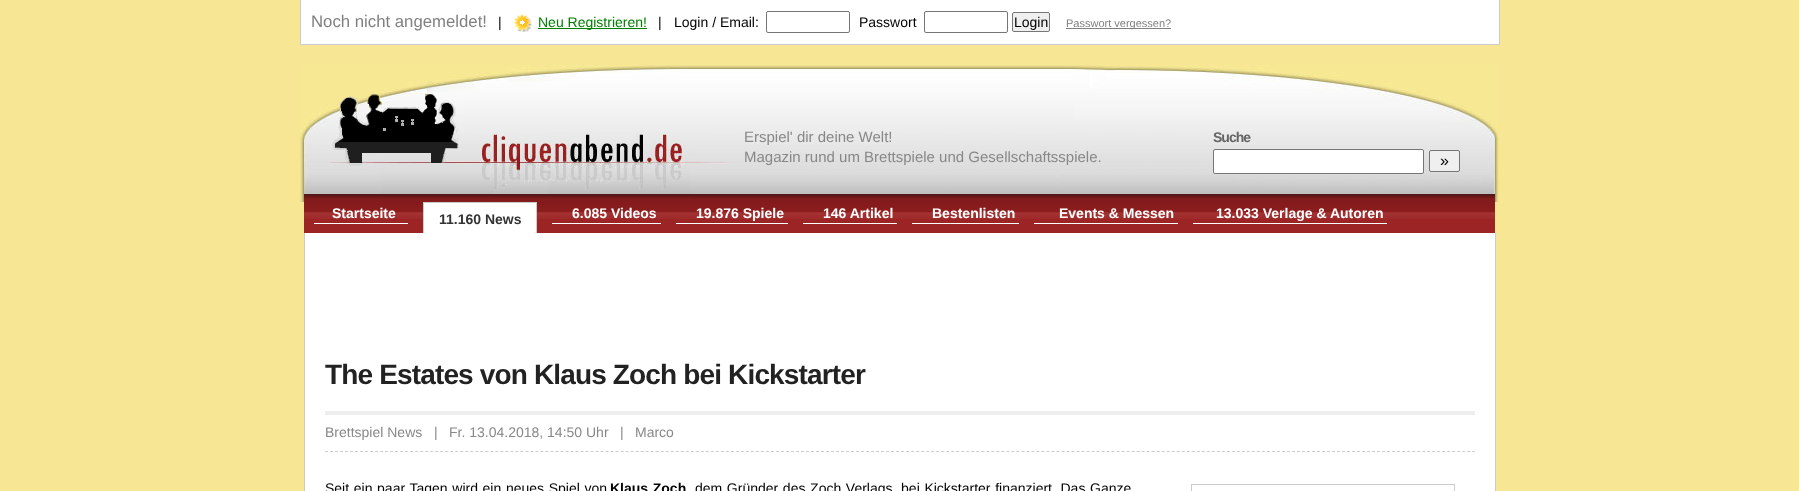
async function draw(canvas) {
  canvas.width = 1799;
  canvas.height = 491;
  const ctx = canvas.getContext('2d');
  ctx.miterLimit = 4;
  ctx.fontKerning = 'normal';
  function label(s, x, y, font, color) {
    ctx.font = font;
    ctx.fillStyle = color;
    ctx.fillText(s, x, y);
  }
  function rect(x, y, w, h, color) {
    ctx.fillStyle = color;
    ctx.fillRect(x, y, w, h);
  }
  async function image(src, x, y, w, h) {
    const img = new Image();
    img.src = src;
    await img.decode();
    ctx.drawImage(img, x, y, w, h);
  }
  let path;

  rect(0, 0, 1799, 491, '#f7e694');
  rect(301, 0, 1198, 44, '#fff');
  rect(1499, 0, 1, 45, '#ccc');
  rect(300, 44, 1200, 1, '#ccc');
  rect(300, 0, 1, 45, '#ccc');
  label('Noch nicht angemeldet!', 311, 27, '16.75px Liberation Sans', '#808080');
  label('|', 498, 27, '14px Liberation Sans', '#000');
  await image('assets/img1.png', 514, 14, 18, 18);
  rect(538, 28, 109, 1, '#008000');
  label('Neu Registrieren!', 538, 27, '14px Liberation Sans', '#008000');
  label('|', 658, 27, '14px Liberation Sans', '#000');
  label('Login / Email:', 674, 27, '14px Liberation Sans', '#000');
  ctx.beginPath();
  ctx.roundRect(766.5, 11.5, 83, 21, 1.5);
  ctx.strokeStyle = '#767676';
  ctx.stroke();
  label('Passwort', 859, 27, '14px Liberation Sans', '#000');
  ctx.beginPath();
  ctx.roundRect(924.5, 11.5, 83, 21, 1.5);
  ctx.stroke();
  ctx.fillStyle = '#efefef';
  ctx.beginPath();
  ctx.roundRect(1012.5, 12.5, 37, 19, 1.5);
  ctx.fill();
  ctx.stroke();
  label('Login', 1014, 27, '14px Liberation Sans', '#000');
  rect(1066, 28, 105, 1, '#808080');
  label('Passwort vergessen?', 1066, 27, '11px Liberation Sans', '#808080');
  await image('assets/img2.png', 300, 65, 1199, 137);
  await image('assets/img3.png', 330, 94, 401, 95);
  label('Erspiel\' dir deine Welt!', 744, 142, '15px Liberation Sans', '#888');
  label('Magazin rund um Brettspiele und Gesellschaftsspiele.', 744, 162, '15px Liberation Sans', '#888');
  ctx.letterSpacing = '-1px';
  label('Suche', 1213, 142, 'bold 14px Liberation Sans', '#666');
  ctx.fillStyle = '#fff';
  ctx.beginPath();
  ctx.roundRect(1213.5, 149.5, 210, 24, 1.5);
  ctx.fill();
  ctx.stroke();
  ctx.fillStyle = '#efefef';
  ctx.beginPath();
  ctx.roundRect(1429.5, 150.5, 30, 21, 1.5);
  ctx.fill();
  ctx.stroke();
  ctx.letterSpacing = '0px';
  label('»', 1440, 166, '16px Liberation Sans', '#000');
  rect(304, 219, 1191, 14, '#9c2425');
  await image('assets/img4.png', 304, 194, 1191, 25);
  rect(314, 223, 94, 1, '#fff');
  label('Startseite', 332, 218, 'bold 14px Liberation Sans', '#fff');
  rect(424, 203, 112, 30, '#fff');
  rect(423, 202, 114, 1, '#ccc');
  rect(536, 202, 1, 31, '#ccc');
  rect(423, 202, 1, 31, '#ccc');
  label('11.160 News', 439, 224, 'bold 14px Liberation Sans', '#333');
  rect(552, 223, 109, 1, '#fff');
  label('6.085 Videos', 572, 218, 'bold 14px Liberation Sans', '#fff');
  rect(676, 223, 112, 1, '#fff');
  label('19.876 Spiele', 696, 218, 'bold 14px Liberation Sans', '#fff');
  rect(803, 223, 94, 1, '#fff');
  label('146 Artikel', 823, 218, 'bold 14px Liberation Sans', '#fff');
  rect(912, 223, 107, 1, '#fff');
  label('Bestenlisten', 932, 218, 'bold 14px Liberation Sans', '#fff');
  rect(1034, 223, 144, 1, '#fff');
  label('Events & Messen', 1059, 218, 'bold 14px Liberation Sans', '#fff');
  rect(1193, 223, 194, 1, '#fff');
  label('13.033 Verlage & Autoren', 1216, 218, 'bold 14px Liberation Sans', '#fff');
  rect(305, 233, 1190, 258, '#fff');
  rect(1495, 233, 1, 258, '#ccc');
  rect(304, 233, 1, 258, '#ccc');
  ctx.save();
  ctx.beginPath();
  ctx.rect(325, 357, 1150, 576);
  ctx.clip();
  ctx.letterSpacing = '-0.85px';
  label('The Estates von Klaus Zoch bei Kickstarter', 325, 384, 'bold 28px Liberation Sans', '#222');
  ctx.restore();
  rect(325, 411, 1150, 4, '#eee');
  path = new Path2D('M325 451.5H1475');
  ctx.strokeStyle = '#ccc';
  ctx.setLineDash([3, 2.01]);
  ctx.stroke(path);
  label('Brettspiel News   |', 325, 437, '14px Liberation Sans', '#888');
  label('Fr. 13.04.2018, 14:50 Uhr', 449, 437, '14px Liberation Sans', '#888');
  label('|', 620, 437, '14px Liberation Sans', '#888');
  label('Marco', 635, 437, '14px Liberation Sans', '#888');
  ctx.wordSpacing = '0.75px';
  label('Seit ein paar Tagen wird ein neues Spiel von', 325, 493, '14px Liberation Sans', '#000');
  label('Klaus Zoch', 610, 493, 'bold 14px Liberation Sans', '#000');
  label('dem Gründer des Zoch Verlags, bei Kickstarter finanziert. Das Ganze', 695, 493, '14px Liberation Sans', '#000');
  ctx.setLineDash([]);
  ctx.strokeRect(1191.5, 484.5, 263, 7);
}

draw(document.querySelector('canvas'));
